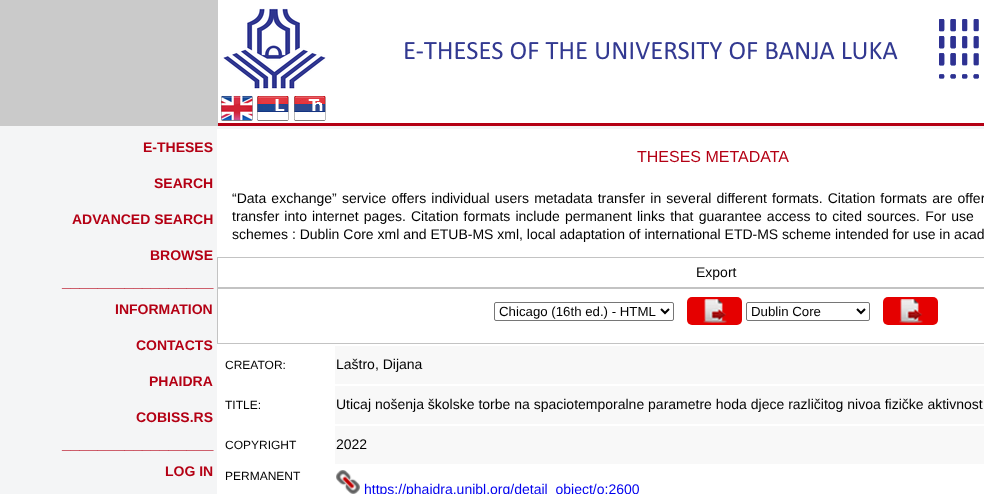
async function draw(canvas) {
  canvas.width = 984;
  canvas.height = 494;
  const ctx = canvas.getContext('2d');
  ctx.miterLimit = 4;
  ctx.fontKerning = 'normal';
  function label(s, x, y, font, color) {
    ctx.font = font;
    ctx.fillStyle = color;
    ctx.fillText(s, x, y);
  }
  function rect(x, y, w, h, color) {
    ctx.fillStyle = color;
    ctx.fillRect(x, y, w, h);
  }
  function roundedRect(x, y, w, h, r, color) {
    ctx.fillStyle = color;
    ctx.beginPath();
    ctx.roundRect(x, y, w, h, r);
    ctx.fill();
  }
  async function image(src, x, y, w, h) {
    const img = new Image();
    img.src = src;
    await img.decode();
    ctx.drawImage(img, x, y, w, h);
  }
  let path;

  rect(0, 0, 984, 494, '#f4f5f6');
  rect(0, 0, 218, 126, '#cacaca');
  await image('assets/img1.png', 218, 0, 766, 126);
  await image('assets/img2.png', 221, 95, 32, 26);
  await image('assets/img3.png', 257, 96, 32, 25);
  await image('assets/img4.png', 294, 96, 32, 25);
  label('E-THESES', 143, 152, 'bold 14px Liberation Sans', '#b40014');
  label('SEARCH', 154, 188, 'bold 14px Liberation Sans', '#b40014');
  label('ADVANCED SEARCH', 72, 224, 'bold 14px Liberation Sans', '#b40014');
  label('BROWSE', 150, 260, 'bold 14px Liberation Sans', '#b40014');
  label('_________________', 62, 287, 'bold 16px Liberation Sans', '#b40014');
  label('INFORMATION', 115, 314, 'bold 14px Liberation Sans', '#b40014');
  label('CONTACTS', 136, 350, 'bold 14px Liberation Sans', '#b40014');
  label('PHAIDRA', 149, 386, 'bold 14px Liberation Sans', '#b40014');
  label('COBISS.RS', 136, 422, 'bold 14px Liberation Sans', '#b40014');
  label('_________________', 62, 449, 'bold 16px Liberation Sans', '#b40014');
  label('LOG IN', 165, 476, 'bold 14px Liberation Sans', '#b40014');
  rect(217, 129, 767, 365, '#fff');
  label('THESES METADATA', 637, 162, '16px Liberation Sans', '#b40014');
  ctx.wordSpacing = '1.25px';
  label('“Data exchange” service offers individual users metadata transfer in several different formats. Citation formats are offer', 232, 203, '14px Liberation Sans', '#000');
  ctx.wordSpacing = '1px';
  label('transfer into', 232, 221, '14px Liberation Sans', '#000');
  ctx.wordSpacing = '1.25px';
  label('internet pages. Citation formats include permanent links that guarantee access to cited sources. For use', 312, 221, '14px Liberation Sans', '#000');
  ctx.wordSpacing = '0px';
  label('schemes : Dublin Core xml and ETUB-MS xml, local adaptation of international ETD-MS scheme intended for use in acad', 232, 239, '14px Liberation Sans', '#000');
  ctx.strokeStyle = '#c3c3c3';
  ctx.strokeRect(217.5, 257.5, 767, 30);
  label('Export', 696, 277, '14px Liberation Sans', '#000');
  ctx.strokeRect(217.5, 288.5, 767, 55);
  ctx.beginPath();
  ctx.roundRect(494.5, 302.5, 179, 18, 1.5);
  ctx.strokeStyle = '#767676';
  ctx.stroke();
  path = new Path2D('M661 309L665 313L669 309');
  ctx.strokeStyle = '#000';
  ctx.lineWidth = 2;
  ctx.stroke(path);
  label('Chicago (16th ed.) - HTML', 499, 316, '13.25px Liberation Sans', '#000');
  roundedRect(687, 297, 55, 28, 5, '#e50000');
  await image('assets/img5.png', 703, 299, 24, 24);
  ctx.beginPath();
  ctx.roundRect(746.5, 302.5, 123, 18, 1.5);
  ctx.strokeStyle = '#767676';
  ctx.lineWidth = 1;
  ctx.stroke();
  path = new Path2D('M857 309L861 313L865 309');
  ctx.strokeStyle = '#000';
  ctx.lineWidth = 2;
  ctx.stroke(path);
  label('Dublin Core', 751, 316, '13.25px Liberation Sans', '#000');
  roundedRect(883, 297, 55, 28, 5, '#e50000');
  await image('assets/img5.png', 899, 299, 24, 24);
  label('CREATOR:', 225, 369, '12px Liberation Sans', '#000');
  rect(335, 346, 649, 38, '#f8f8f8');
  label('Laštro, Dijana', 336, 369, '14px Liberation Sans', '#000');
  label('TITLE:', 225, 409, '12px Liberation Sans', '#000');
  rect(335, 386, 649, 38, '#f8f8f8');
  label('Uticaj nošenja školske torbe na spaciotemporalne parametre hoda djece različitog nivoa fizičke aktivnost', 336, 409, '14px Liberation Sans', '#000');
  label('COPYRIGHT', 225, 449, '12px Liberation Sans', '#000');
  rect(335, 426, 649, 38, '#f8f8f8');
  label('2022', 336, 449, '14px Liberation Sans', '#000');
  label('PERMANENT', 225, 480, '12px Liberation Sans', '#000');
  await image('assets/img6.png', 336, 470, 24, 24);
  label('https://phaidra.unibl.org/detail_object/o:2600', 364, 494, '14px Liberation Sans', '#00e');
}

draw(document.querySelector('canvas'));
